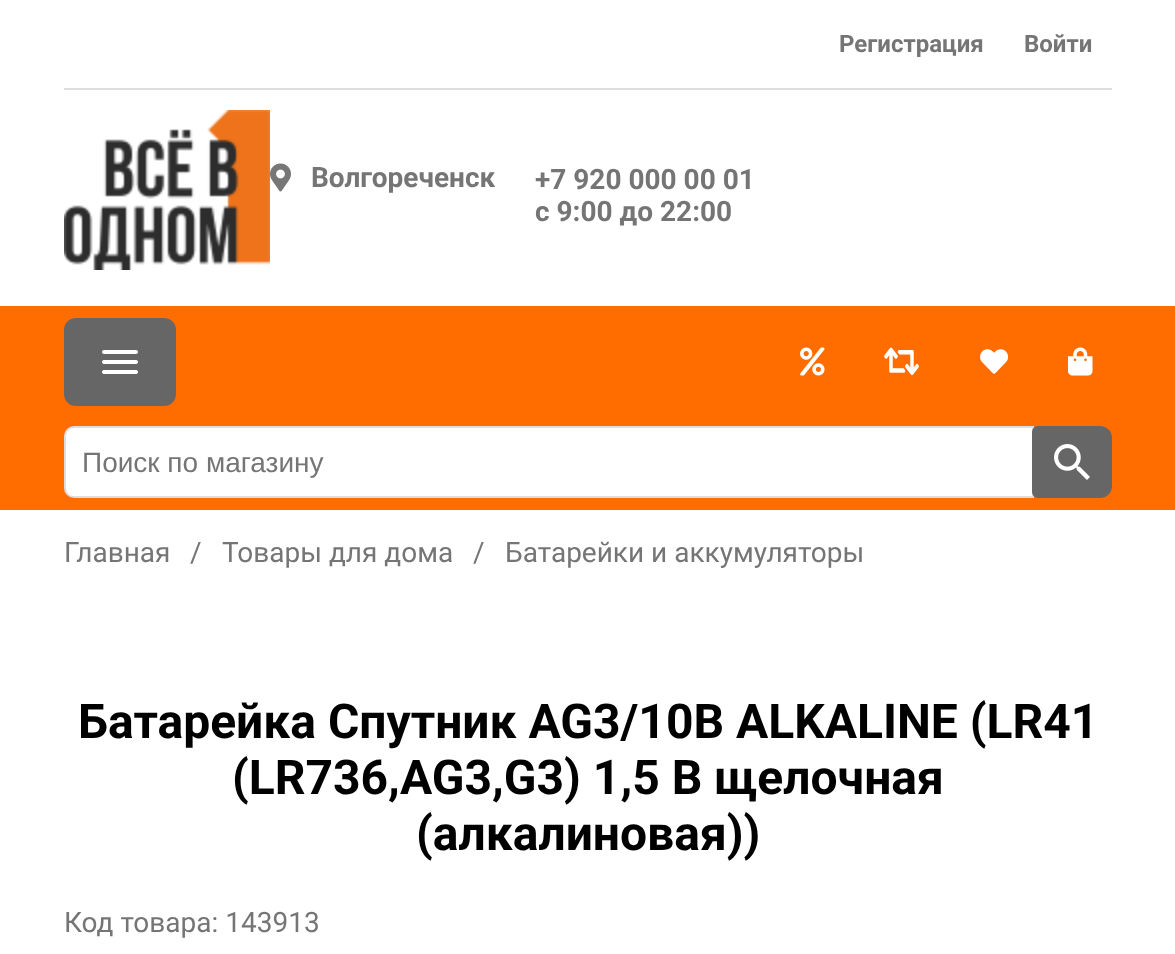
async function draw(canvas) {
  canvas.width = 1175;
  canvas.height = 954;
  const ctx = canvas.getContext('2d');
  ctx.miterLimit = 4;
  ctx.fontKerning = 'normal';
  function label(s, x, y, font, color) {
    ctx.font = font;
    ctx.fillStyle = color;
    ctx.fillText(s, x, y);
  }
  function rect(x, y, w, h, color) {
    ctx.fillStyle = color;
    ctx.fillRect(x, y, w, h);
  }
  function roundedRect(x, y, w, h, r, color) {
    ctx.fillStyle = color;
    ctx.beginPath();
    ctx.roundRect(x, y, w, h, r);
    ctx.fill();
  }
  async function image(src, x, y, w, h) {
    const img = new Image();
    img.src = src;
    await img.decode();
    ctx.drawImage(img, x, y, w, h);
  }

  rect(0, 0, 1175, 954, '#fff');
  rect(64, 88, 1048, 2, '#ddd');
  label('Регистрация', 839, 52, 'bold 24px Roboto', '#757575');
  label('Войти', 1024, 52, 'bold 24px Roboto', '#757575');
  await image('assets/img1.png', 64, 110, 206, 160);
  await image('assets/img2.png', 270, 163, 21, 29);
  label('Волгореченск', 311, 187, 'bold 28px Roboto', '#757575');
  label('+7 920 000 00 01', 535, 189, 'bold 28px Roboto', '#757575');
  label('с 9:00 до 22:00', 535, 221, 'bold 28px Roboto', '#757575');
  rect(0, 306, 1175, 204, '#ff6d00');
  roundedRect(64, 318, 112, 88, 12, '#666');
  await image('assets/img3.png', 102, 350, 36, 24);
  await image('assets/img4.png', 800, 347, 25, 29);
  await image('assets/img5.png', 884, 347, 35, 29);
  await image('assets/img6.png', 980, 349, 29, 25);
  await image('assets/img7.png', 1068, 347, 25, 29);
  ctx.fillStyle = '#fff';
  ctx.beginPath();
  ctx.roundRect(65, 427, 968, 70, [9, 0, 0, 9]);
  ctx.fill();
  ctx.strokeStyle = '#ddd';
  ctx.lineWidth = 2;
  ctx.stroke();
  label('Поиск по магазину', 82, 472, '28px Liberation Sans', '#757575');
  ctx.fillStyle = '#666';
  ctx.beginPath();
  ctx.roundRect(1032, 426, 80, 72, [6, 12, 12, 6]);
  ctx.fill();
  await image('assets/img8.png', 1054, 444, 36, 36);
  label('Главная', 64, 562, '28px Roboto', '#757575');
  label('/', 190, 562, '28px Roboto', '#757575');
  label('Товары для дома', 222, 562, '28px Roboto', '#757575');
  label('/', 473, 562, '28px Roboto', '#757575');
  label('Батарейки и аккумуляторы', 505, 562, '28px Roboto', '#757575');
  label('Батарейка Спутник AG3/10B ALKALINE (LR41', 78, 738, 'bold 48px Roboto', '#000');
  label('(LR736,AG3,G3) 1,5 В щелочная', 232, 794, 'bold 48px Roboto', '#000');
  label('(алкалиновая))', 416, 850, 'bold 48px Roboto', '#000');
  label('Код товара: 143913', 64, 932, '28px Roboto', '#757575');
}

draw(document.querySelector('canvas'));
